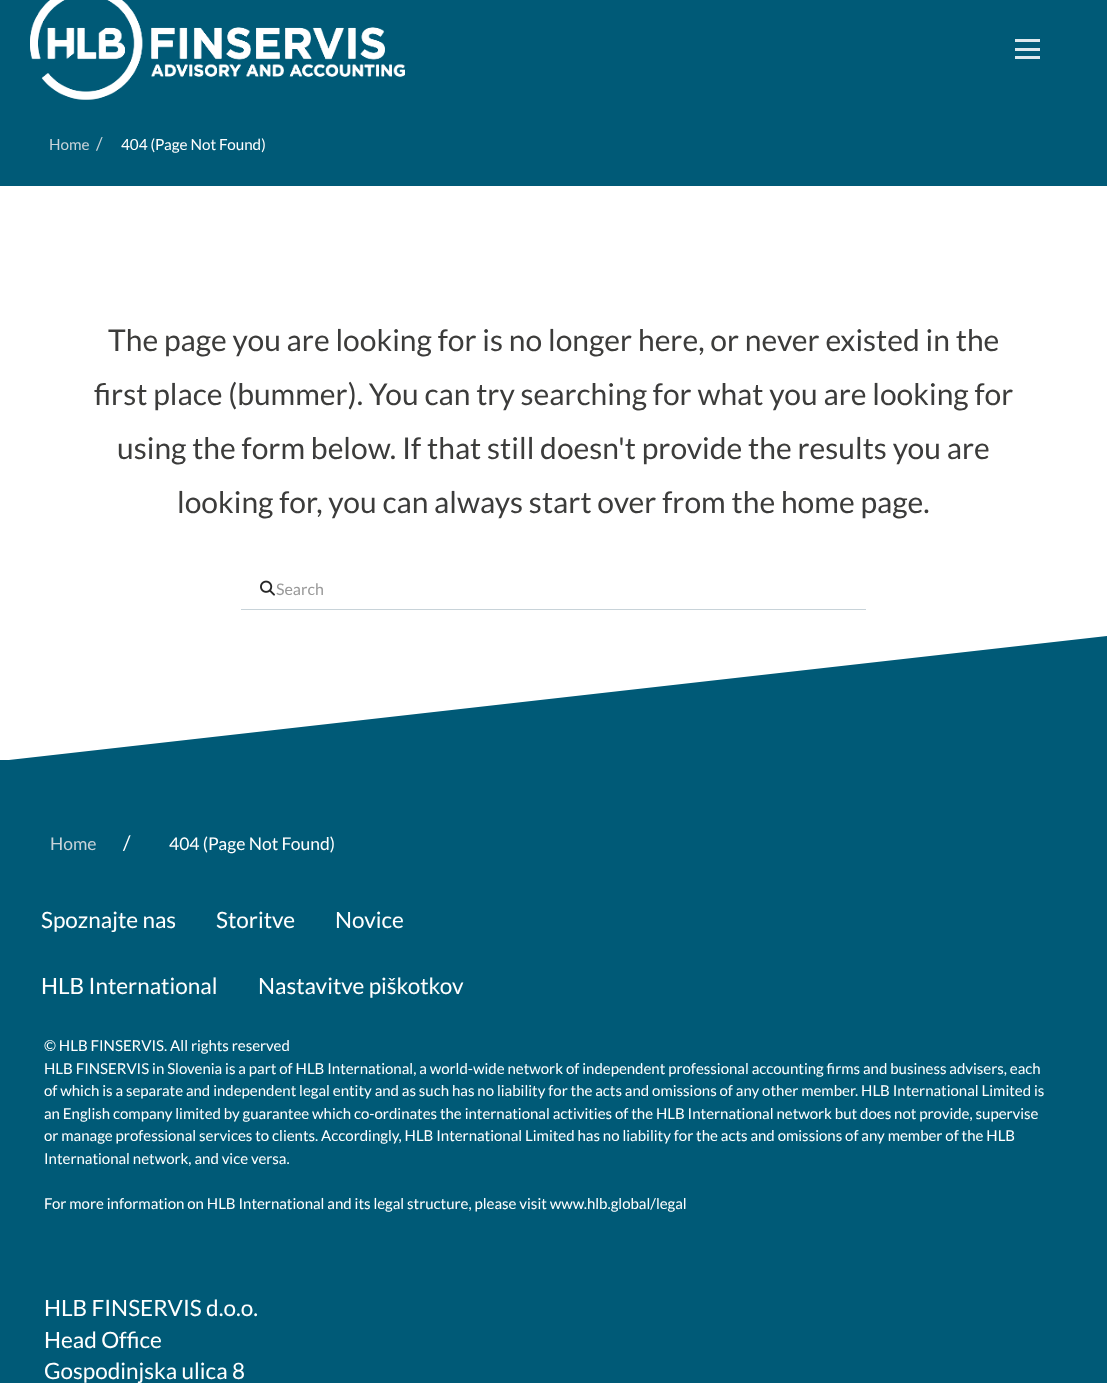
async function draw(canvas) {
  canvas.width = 1107;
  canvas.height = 1383;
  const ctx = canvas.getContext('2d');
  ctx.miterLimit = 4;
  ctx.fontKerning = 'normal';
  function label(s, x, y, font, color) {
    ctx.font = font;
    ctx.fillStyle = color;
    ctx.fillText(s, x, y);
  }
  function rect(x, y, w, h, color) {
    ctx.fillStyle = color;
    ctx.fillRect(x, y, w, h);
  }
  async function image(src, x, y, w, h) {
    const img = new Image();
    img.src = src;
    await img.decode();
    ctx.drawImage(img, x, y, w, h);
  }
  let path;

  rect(0, 0, 1107, 1383, '#fff');
  rect(0, 0, 1107, 186, '#005a77');
  await image('assets/img1.png', 30, 0, 375, 100);
  await image('assets/img2.png', 30, 0, 375, 100);
  rect(1015, 39, 25, 3, '#dce8ed');
  rect(1015, 48, 25, 3, '#dce8ed');
  rect(1015, 56, 25, 3, '#dce8ed');
  label('Home', 49, 150, '15.25px Lato', '#c8d3d9');
  label('/', 96, 150, '17.5px Lato', '#c8d3d9');
  label('404 (Page Not Found)', 121, 150, '15.25px Lato', '#fff');
  label('The page you are looking for is no longer here, or never existed in the', 108, 351, '30px Lato', '#3c3c3b');
  label('first place (bummer). You can try searching for what you are looking for', 94, 405, '30px Lato', '#3c3c3b');
  label('using the form below. If that still doesn\'t provide the results you are', 117, 459, '30px Lato', '#3c3c3b');
  label('looking for, you can always start over from the home page.', 177, 513, '30px Lato', '#3c3c3b');
  await image('assets/img3.png', 260, 580, 15, 16);
  rect(241, 609, 625, 1, '#c8d3d9');
  label('Search', 276, 595, '16px Lato', '#999');
  rect(0, 760, 1107, 623, '#005a77');
  path = new Path2D('M0 761H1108V636Z');
  ctx.fill(path);
  label('Home', 50, 850, '17.5px Lato', '#c8d3d9');
  label('/', 123, 850, '20px Lato', '#fff');
  label('404 (Page Not Found)', 169, 850, '17.5px Lato', '#fff');
  label('Spoznajte nas', 41, 928, '22.5px Lato', '#fff');
  label('Storitve', 216, 928, '22.5px Lato', '#fff');
  label('Novice', 335, 928, '22.5px Lato', '#fff');
  label('HLB International', 41, 994, '22.5px Lato', '#fff');
  label('Nastavitve piškotkov', 258, 994, '22.5px Lato', '#fff');
  label('© HLB FINSERVIS. All rights reserved', 44, 1051, '15px Lato', '#fff');
  label('HLB FINSERVIS in Slovenia is a part of HLB International, a world-wide network of independent professional accounting firms and business advisers, each', 44, 1074, '15px Lato', '#fff');
  label('of which is a separate and independent legal entity and as such has no liability for the acts and omissions of any other member. HLB International Limited is', 44, 1096, '15px Lato', '#fff');
  label('an English company limited by guarantee which co-ordinates the international activities of the HLB International network but does not provide, supervise', 44, 1119, '15px Lato', '#fff');
  label('or manage professional services to clients. Accordingly, HLB International Limited has no liability for the acts and omissions of any member of the HLB', 44, 1141, '15px Lato', '#fff');
  label('International network, and vice versa.', 44, 1164, '15px Lato', '#fff');
  label('For more information on HLB International and its legal structure, please visit www.hlb.global/legal', 44, 1209, '15px Lato', '#fff');
  label('HLB FINSERVIS d.o.o.', 44, 1316, '22.5px Lato', '#fff');
  label('Head Office', 44, 1348, '22.5px Lato', '#fff');
  label('Gospodinjska ulica 8', 44, 1379, '22.5px Lato', '#fff');
}

draw(document.querySelector('canvas'));
